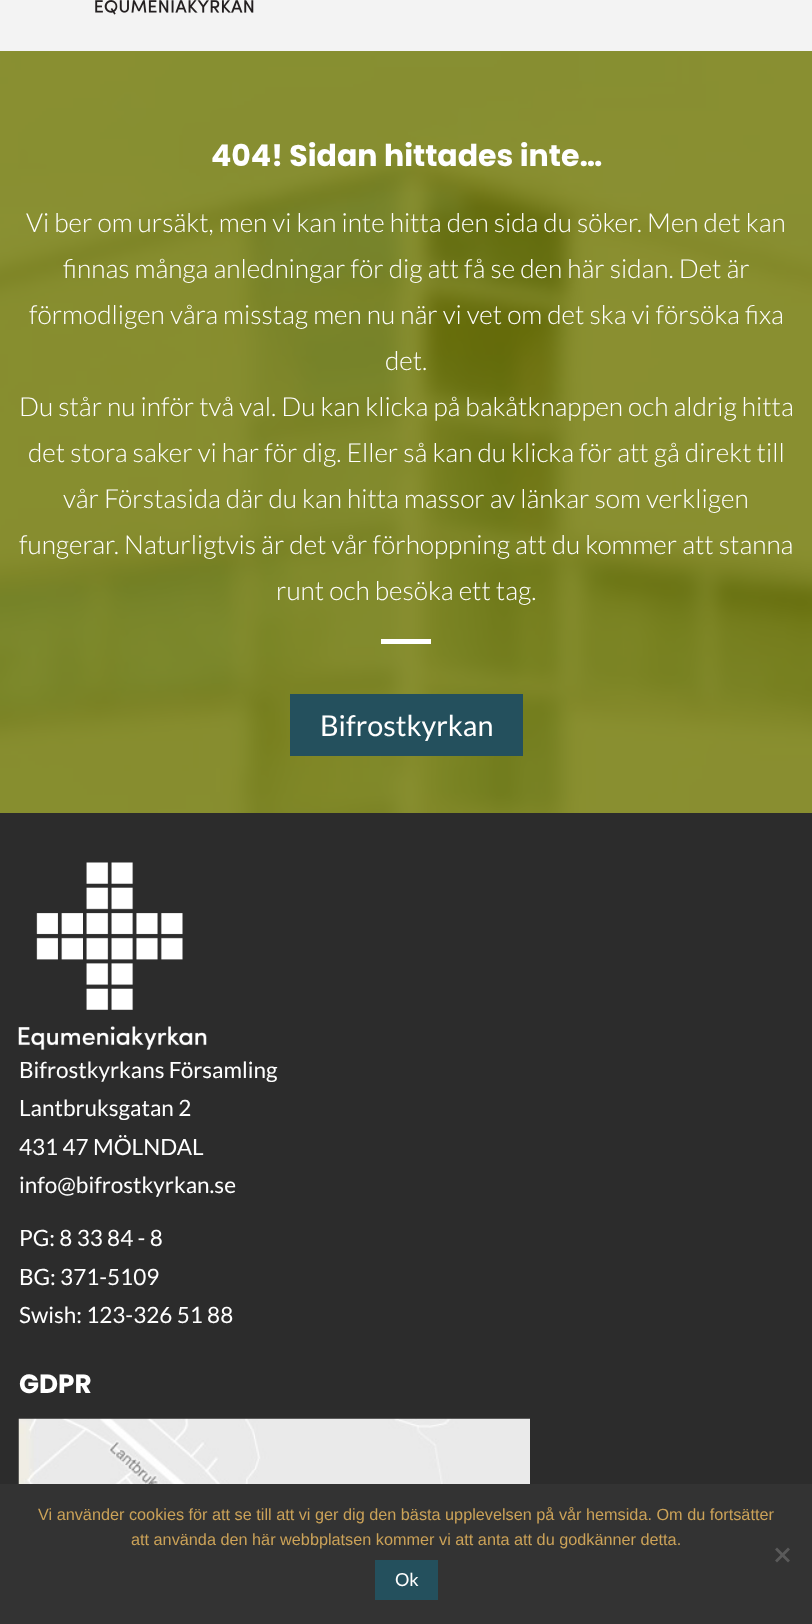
async function draw(canvas) {
  canvas.width = 812;
  canvas.height = 1624;
  const ctx = canvas.getContext('2d');
  ctx.miterLimit = 4;
  ctx.fontKerning = 'normal';
  function label(s, x, y, font, color) {
    ctx.font = font;
    ctx.fillStyle = color;
    ctx.fillText(s, x, y);
  }
  function rect(x, y, w, h, color) {
    ctx.fillStyle = color;
    ctx.fillRect(x, y, w, h);
  }
  async function image(src, x, y, w, h) {
    const img = new Image();
    img.src = src;
    await img.decode();
    ctx.drawImage(img, x, y, w, h);
  }
  let path;

  rect(0, 0, 812, 1624, '#2c2c2c');
  ctx.fillStyle = '#f3f3f3';
  path = new Path2D('M0 50V51H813V-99H812V50Z');
  ctx.fill(path);
  rect(0, 0, 812, 50, '#f3f3f3');
  await image('assets/img1.png', 95, 0, 159, 15);
  await image('assets/img2.png', 0, 51, 812, 762);
  label('404! Sidan hittades inte…', 211, 166, 'bold 30px Poppins', '#fff');
  label('Vi ber om ursäkt, men vi kan inte hitta den sida du söker. Men det kan', 26, 232, '300 26.25px Lato', '#fff');
  label('finnas många anledningar för dig att få se den här sidan. Det är', 63, 278, '300 26.25px Lato', '#fff');
  label('förmodligen våra misstag men nu när vi vet om det ska vi försöka fixa', 29, 324, '300 26.25px Lato', '#fff');
  label('det.', 385, 370, '300 26.25px Lato', '#fff');
  label('Du står nu inför två val. Du kan klicka på bakåtknappen och aldrig hitta', 19, 416, '300 26.25px Lato', '#fff');
  label('det stora saker vi har för dig. Eller så kan du klicka för att gå direkt till', 28, 462, '300 26.25px Lato', '#fff');
  label('vår Förstasida där du kan hitta massor av länkar som verkligen', 63, 508, '300 26.25px Lato', '#fff');
  label('fungerar. Naturligtvis är det vår förhoppning att du kommer att stanna', 19, 554, '300 26.25px Lato', '#fff');
  label('runt och besöka ett tag.', 276, 600, '300 26.25px Lato', '#fff');
  rect(381, 639, 50, 5, '#fff');
  rect(290, 694, 233, 62, '#24505d');
  label('Bifrostkyrkan', 320, 736, '28.75px Lato', '#fff');
  await image('assets/img3.png', 18, 862, 189, 188);
  label('Bifrostkyrkans Församling', 19, 1078, '22.5px Lato', '#fff');
  label('Lantbruksgatan 2', 19, 1116, '22.5px Lato', '#fff');
  label('431 47 MÖLNDAL', 19, 1155, '22.5px Lato', '#fff');
  label('info@bifrostkyrkan.se', 19, 1193, '22.5px Lato', '#fff');
  label('PG: 8 33 84 - 8', 19, 1246, '22.5px Lato', '#fff');
  label('BG: 371-5109', 19, 1285, '22.5px Lato', '#fff');
  label('Swish: 123-326 51 88', 19, 1323, '22.5px Lato', '#fff');
  label('GDPR', 19, 1393, 'bold 26.25px Poppins', '#fff');
  await image('assets/img4.png', 18, 1418, 512, 66);
  rect(0, 1484, 812, 140, '#333');
  label('Vi använder cookies för att se till att vi ger dig den bästa upplevelsen på vår hemsida. Om du fortsätter', 38, 1520, '16.25px Liberation Sans', '#cba258');
  label('att använda den här webbplatsen kommer vi att anta att du godkänner detta.', 131, 1545, '16.25px Liberation Sans', '#cba258');
  ctx.fillStyle = '#5a5a5a';
  path = new Path2D('M788 1547.5L790 1549.5L777 1562.5L775 1560.5Z');
  ctx.fill(path);
  path = new Path2D('M775 1549.5L777 1547.5L790 1560.5L788 1562.5Z');
  ctx.fill(path);
  rect(375, 1560, 63, 40, '#24505d');
  label('Ok', 395, 1586, '18px Lato', '#fff');
}

draw(document.querySelector('canvas'));
